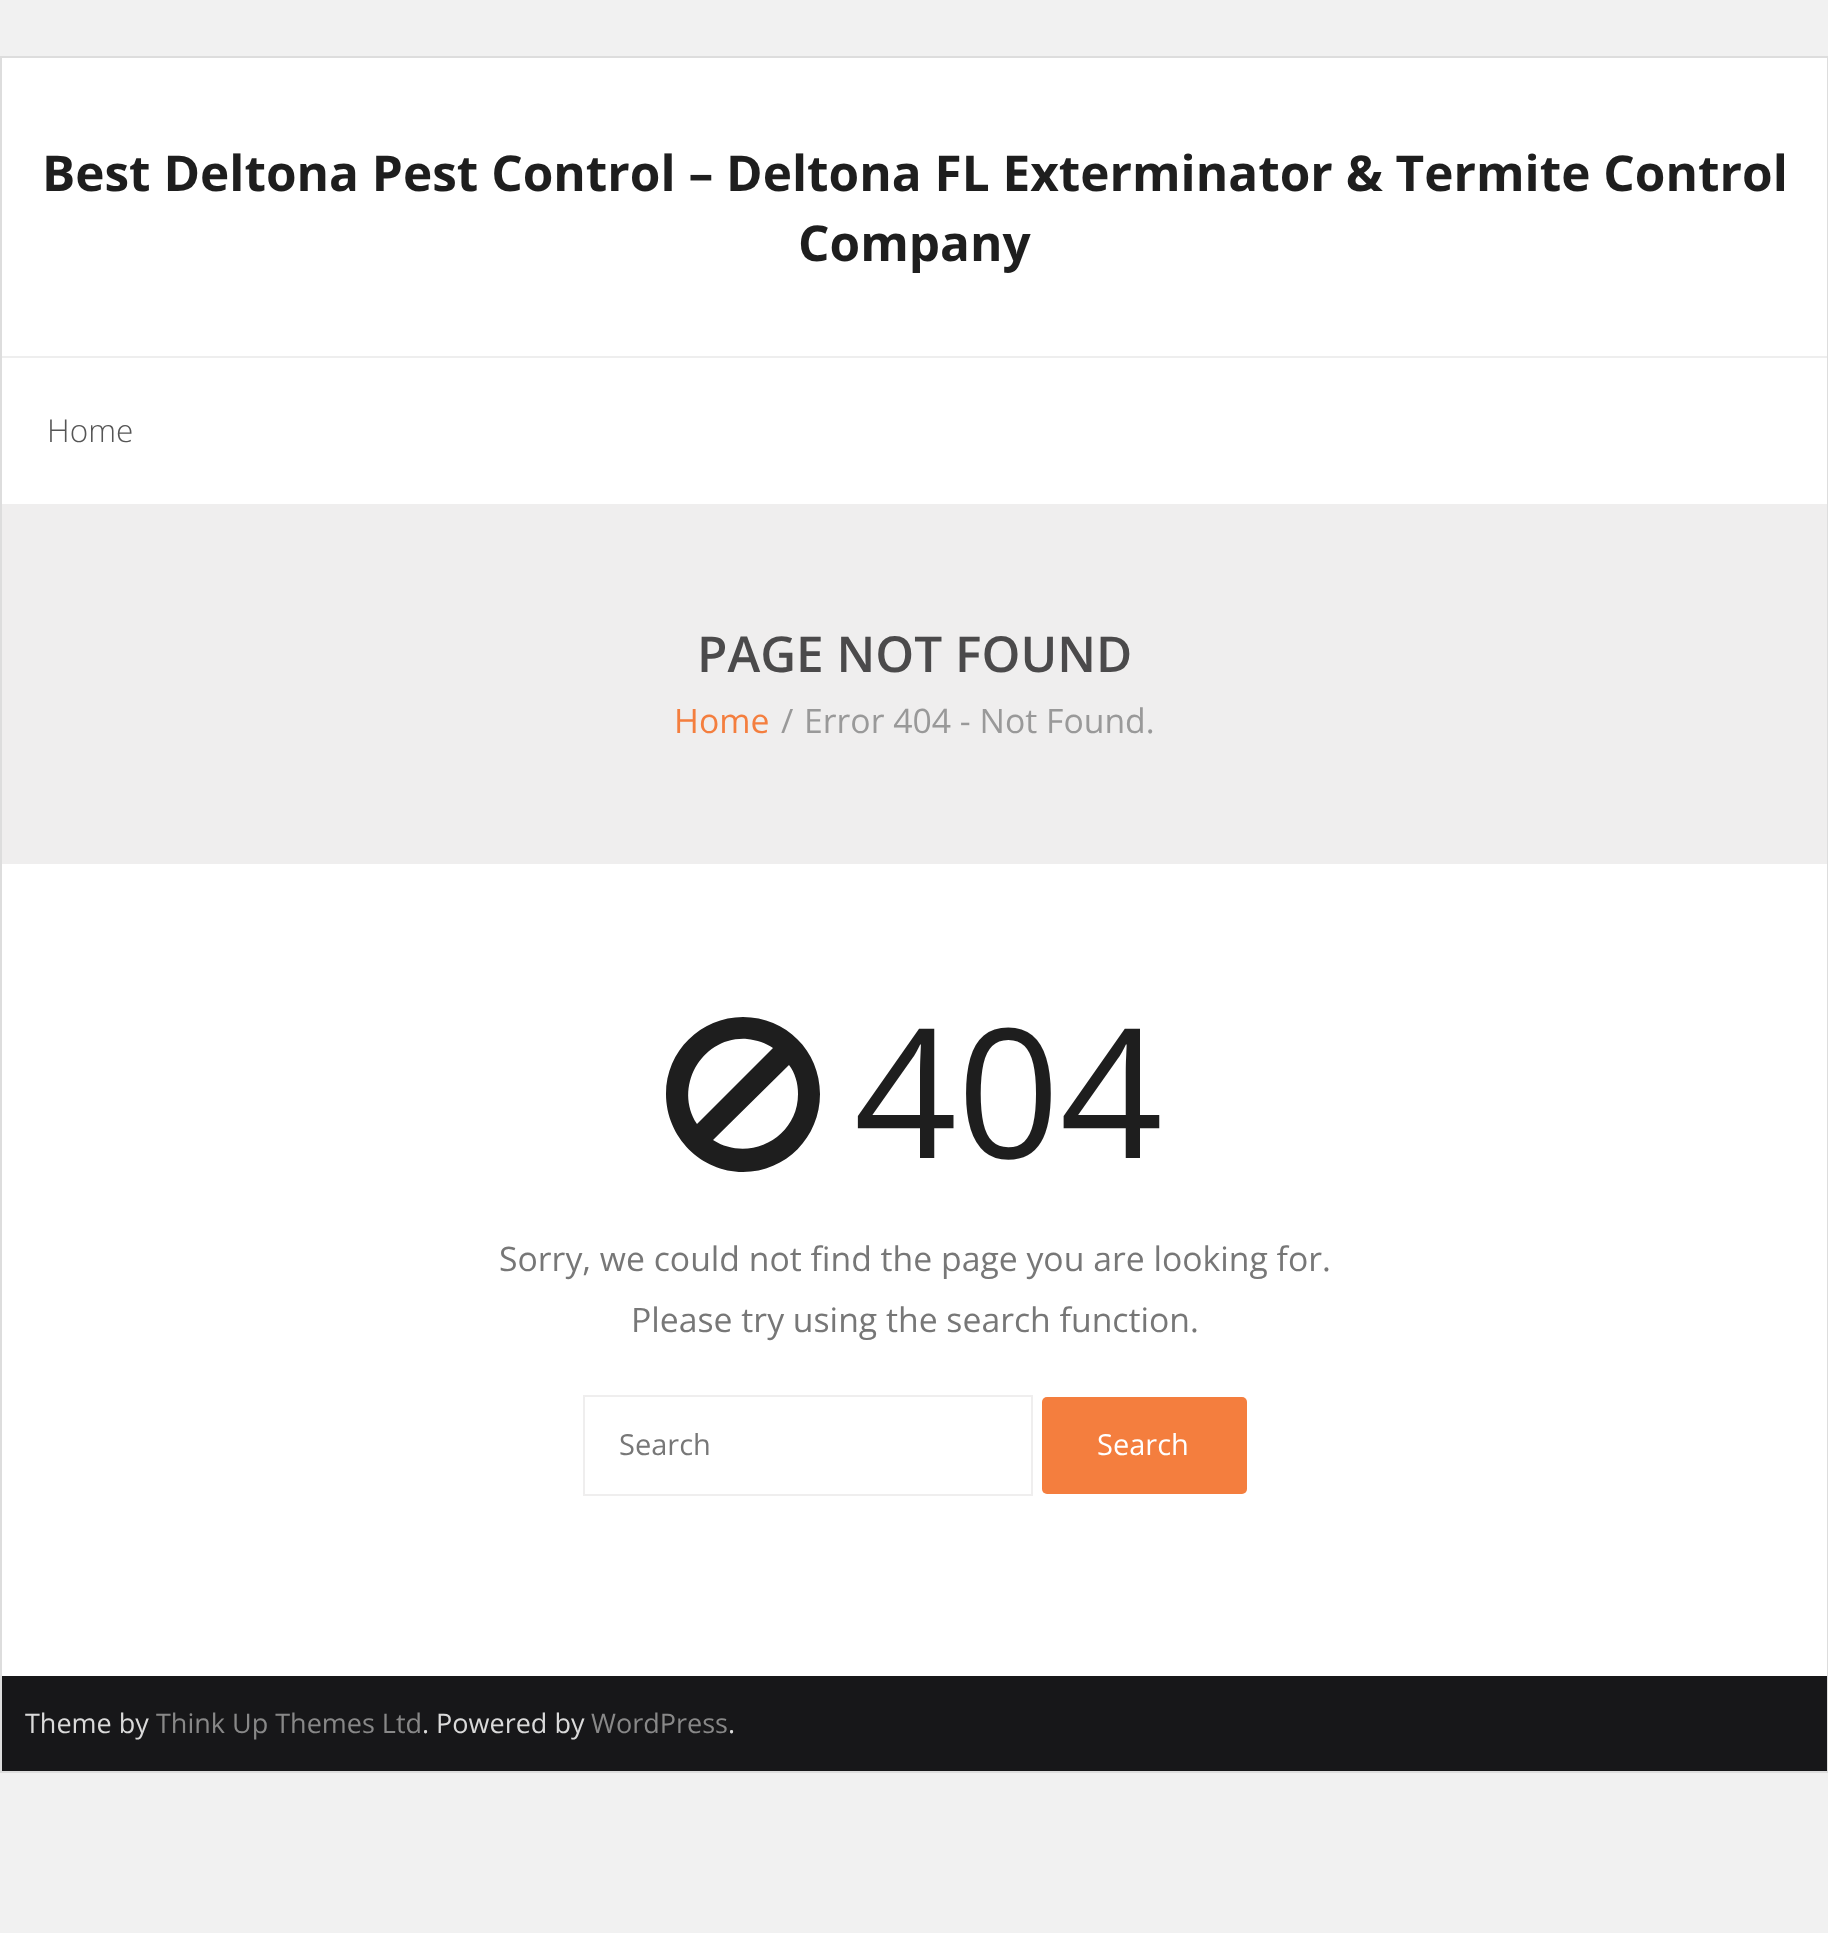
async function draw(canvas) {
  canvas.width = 1828;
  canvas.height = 1933;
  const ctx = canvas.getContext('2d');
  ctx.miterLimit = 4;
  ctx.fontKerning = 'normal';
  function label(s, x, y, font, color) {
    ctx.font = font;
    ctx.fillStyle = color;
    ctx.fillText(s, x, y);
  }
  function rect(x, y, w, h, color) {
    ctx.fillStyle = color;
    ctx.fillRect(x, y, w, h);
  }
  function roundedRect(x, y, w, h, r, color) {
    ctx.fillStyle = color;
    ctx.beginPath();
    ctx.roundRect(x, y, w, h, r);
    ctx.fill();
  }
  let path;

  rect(0, 0, 1828, 1933, '#f1f1f1');
  rect(2, 58, 1825, 1618, '#fff');
  ctx.strokeStyle = '#ddd';
  ctx.lineWidth = 2;
  ctx.strokeRect(1, 57, 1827, 1715);
  label('Best Deltona Pest Control – Deltona FL Exterminator & Termite Control', 42, 191, 'bold 49.5px Open Sans', '#1e1e1e');
  label('Company', 798, 261, 'bold 49.5px Open Sans', '#1e1e1e');
  rect(2, 356, 1825, 2, '#eee');
  label('Home', 47, 442, '300 31.5px Open Sans', '#555');
  rect(2, 504, 1825, 360, '#efeeee');
  label('PAGE NOT FOUND', 697, 672, '600 49.5px Open Sans', '#4b4a4b');
  label('Home', 674, 733, '33.75px Open Sans', '#f47e3e');
  label('/', 781, 733, '33.75px Open Sans', '#999');
  label('Error 404 - Not Found.', 804, 733, '33.75px Open Sans', '#999');
  ctx.fillStyle = '#1e1e1e';
  path = new Path2D('M798 1094C798 1138 749 1163 713 1140L789 1065C795 1073 798 1083 798 1094ZM697 1124C673 1087 702 1036 747 1039C757 1040 766 1043 773 1048ZM820 1094C820 1051 786 1017 743 1017C701 1017 666 1051 666 1094C666 1137 701 1172 743 1172C786 1172 820 1137 820 1094Z');
  ctx.fill(path);
  label('404', 854, 1158, '180px Open Sans', '#1e1e1e');
  label('Sorry, we could not find the page you are looking for.', 499, 1271, '33.75px Open Sans', '#777');
  label('Please try using the search function.', 631, 1332, '33.75px Open Sans', '#777');
  ctx.strokeStyle = '#efeeee';
  ctx.strokeRect(584, 1396, 448, 99);
  label('Search', 619, 1455, '29px Open Sans', '#777');
  roundedRect(1042, 1397, 205, 97, 5, '#f47e3e');
  label('Search', 1097, 1455, '29px Open Sans', '#fff');
  rect(2, 1676, 1825, 95, '#171719');
  label('Theme by', 25, 1733, '27px Open Sans', '#dadada');
  label('Think Up Themes Ltd', 156, 1733, '27px Open Sans', '#888');
  label('. Powered by', 422, 1733, '27px Open Sans', '#dadada');
  label('WordPress', 591, 1733, '27px Open Sans', '#888');
  label('.', 728, 1733, '27px Open Sans', '#dadada');
}

draw(document.querySelector('canvas'));
